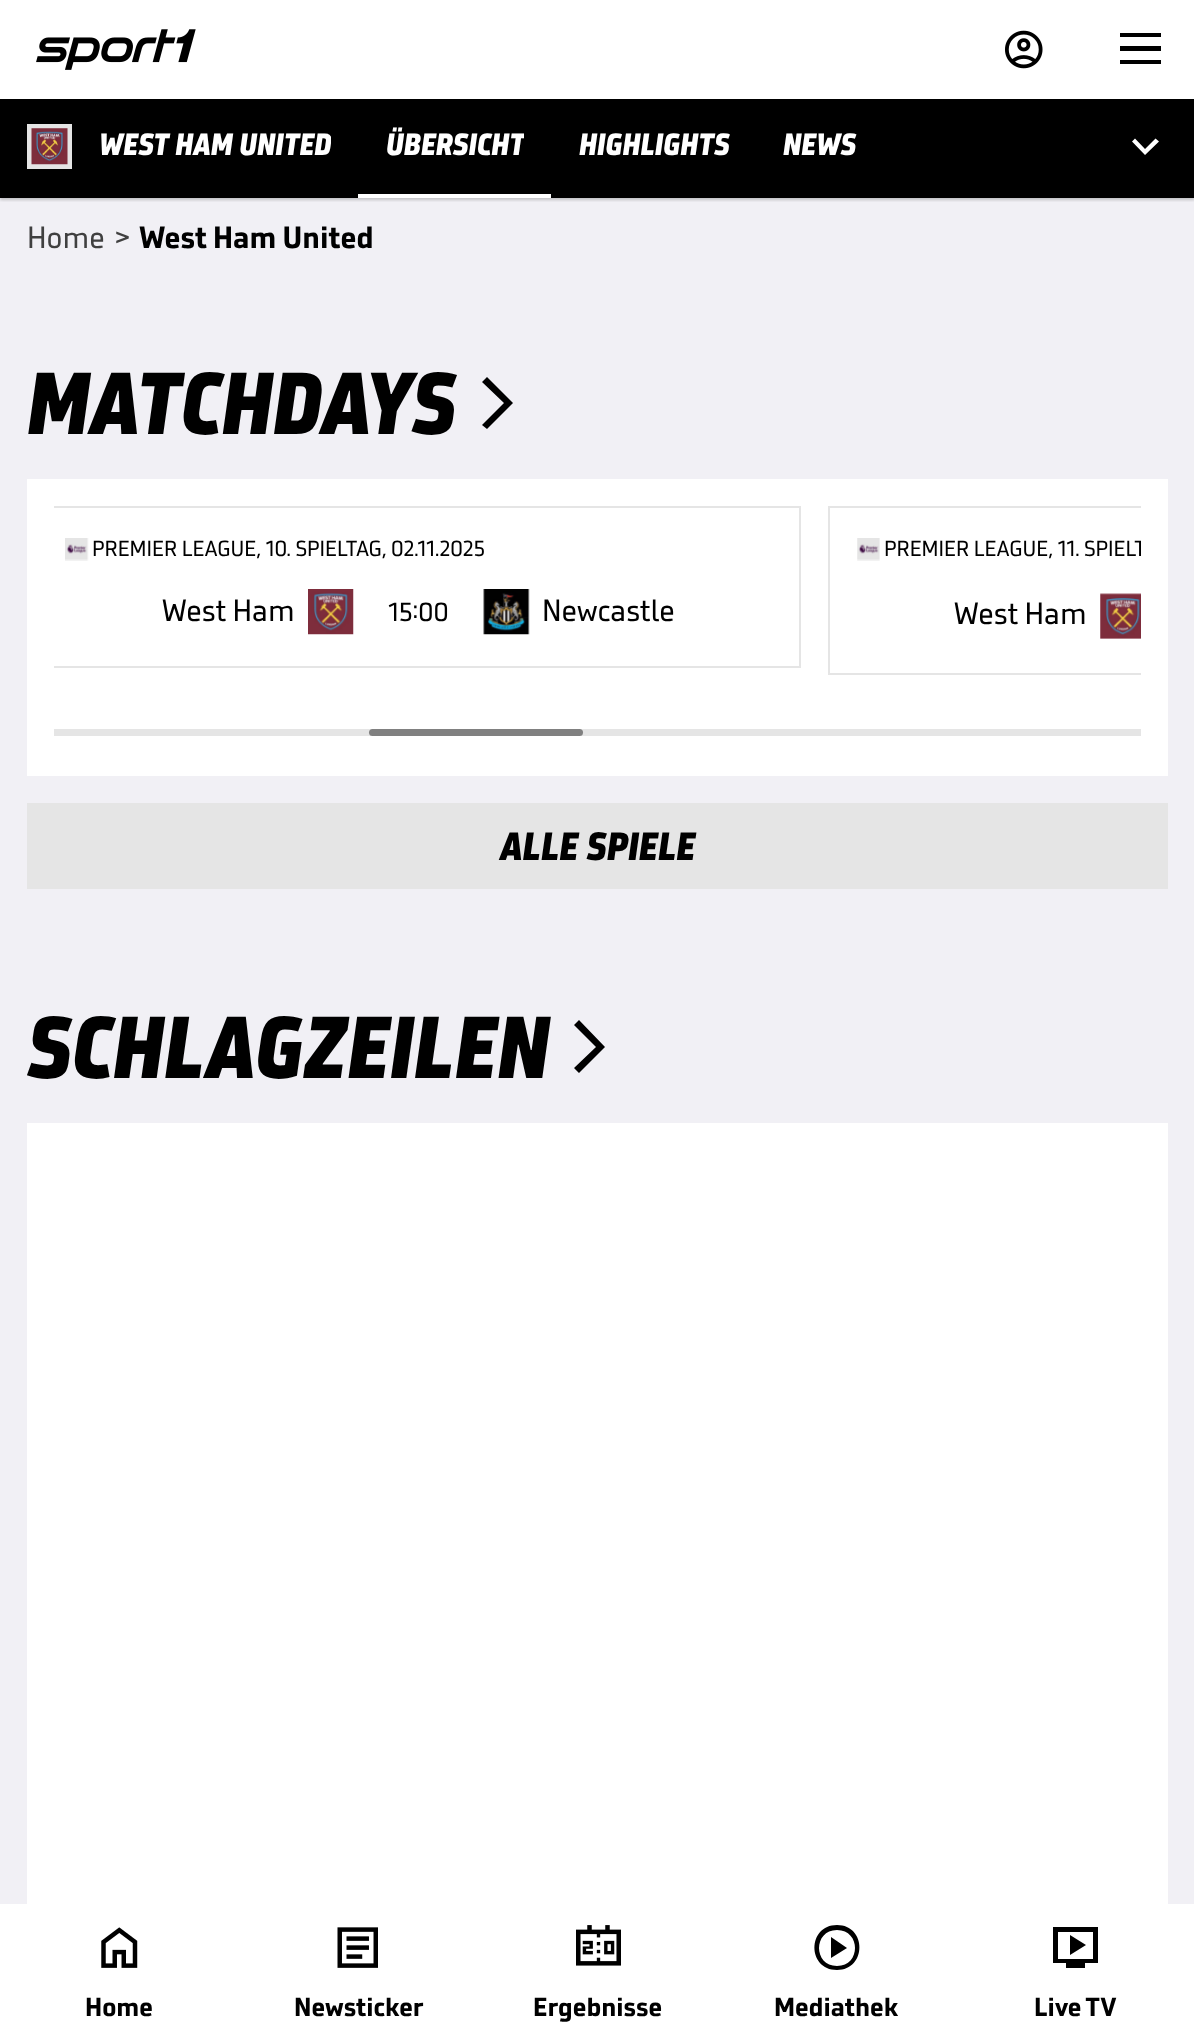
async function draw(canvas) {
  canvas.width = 1194;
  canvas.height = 2042;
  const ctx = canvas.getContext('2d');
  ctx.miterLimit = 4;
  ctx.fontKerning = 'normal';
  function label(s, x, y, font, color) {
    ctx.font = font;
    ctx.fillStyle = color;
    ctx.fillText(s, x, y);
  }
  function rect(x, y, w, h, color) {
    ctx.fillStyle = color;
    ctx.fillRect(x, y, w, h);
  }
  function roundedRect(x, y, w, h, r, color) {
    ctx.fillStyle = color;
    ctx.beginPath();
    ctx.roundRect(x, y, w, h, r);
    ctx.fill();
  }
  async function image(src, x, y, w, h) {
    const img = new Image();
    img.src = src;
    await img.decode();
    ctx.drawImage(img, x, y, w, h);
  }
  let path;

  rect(0, 0, 1194, 2042, '#f1f0f5');
  rect(0, 0, 1194, 99, '#fff');
  await image('assets/img1.png', 36, 29, 160, 41);
  await image('assets/img2.png', 1005, 30, 38, 39);
  ctx.fillStyle = '#000';
  path = new Path2D('M1120 37V33H1161V37ZM1120 64V60H1161V64ZM1120 51V46H1161V51Z');
  ctx.fill(path);
  rect(0, 99, 1194, 99, '#000');
  ctx.save();
  ctx.beginPath();
  ctx.rect(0, 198, 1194, 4);
  ctx.clip();
  ctx.fillStyle = '#00000033';
  ctx.filter = 'blur(1.5px)';
  ctx.beginPath();
  ctx.rect(0, 101, 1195, 99);
  ctx.fill();
  ctx.filter = 'none';
  ctx.restore();
  rect(27, 124, 45, 45, '#e5e5e5');
  await image('assets/img3.png', 31, 128, 37, 37);
  ctx.save();
  ctx.beginPath();
  ctx.rect(99, 126, 232, 41);
  ctx.clip();
  label('WEST HAM UNITED', 99, 155, 'italic 900 31.5px "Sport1"', '#fff');
  ctx.restore();
  rect(358, 194, 193, 4, '#fff');
  ctx.save();
  ctx.beginPath();
  ctx.rect(385, 126, 139, 41);
  ctx.clip();
  label('ÜBERSICHT', 386, 155, 'italic 900 31.5px "Sport1"', '#fff');
  ctx.restore();
  label('HIGHLIGHTS', 579, 155, 'italic 900 31.5px "Sport1"', '#fff');
  label('NEWS', 783, 155, 'italic 900 31.5px "Sport1"', '#fff');
  path = new Path2D('M1145 155L1132 141.5L1135 138.5L1145 149L1155.5 138.5L1159 141.5Z');
  ctx.fill(path);
  label('Home', 27, 248, '31.5px "Sport1"', '#404040');
  label('>', 114, 248, '31.5px "Sport1"', '#404040');
  label('West Ham United', 139, 248, 'bold 31.5px "Sport1"', '#000');
  label('MATCHDAYS', 27, 434, 'italic 900 90px "Sport1"', '#000');
  path = new Path2D('M487 429L482 425L504 403L482 382L487 377L513 403Z');
  ctx.fill(path);
  rect(27, 479, 1141, 297, '#fff');
  ctx.save();
  ctx.beginPath();
  ctx.rect(54, 506, 1087, 169);
  ctx.clip();
  ctx.strokeStyle = '#e5e5e5';
  ctx.lineWidth = 2;
  ctx.strokeRect(37, 507, 763, 160);
  ctx.restore();
  await image('assets/img4.png', 65, 538, 24, 23);
  label('PREMIER LEAGUE, 10. SPIELTAG, 02.11.2025', 92, 556, '22.5px "Sport1"', '#000');
  label('West Ham', 162, 621, '31.5px "Sport1"', '#000');
  await image('assets/img5.png', 308, 589, 46, 46);
  label('15:00', 388, 621, '27px "Sport1"', '#000');
  await image('assets/img6.png', 483, 589, 47, 46);
  label('Newcastle', 542, 621, '31.5px "Sport1"', '#000');
  ctx.save();
  ctx.beginPath();
  ctx.rect(54, 506, 1087, 169);
  ctx.clip();
  ctx.strokeStyle = '#e5e5e5';
  ctx.lineWidth = 2;
  ctx.strokeRect(829, 507, 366, 167);
  ctx.restore();
  await image('assets/img7.png', 857, 538, 23, 23);
  ctx.save();
  ctx.beginPath();
  ctx.rect(884, 536, 257, 27);
  ctx.clip();
  label('PREMIER LEAGUE, 11. SPIELT', 884, 556, '22.5px "Sport1"', '#000');
  ctx.restore();
  label('West Ham', 954, 624, '31.5px "Sport1"', '#000');
  await image('assets/img8.png', 1100, 593, 41, 46);
  rect(54, 729, 1087, 7, '#e5e5e5');
  roundedRect(369, 729, 214, 7, 3.5, '#808080');
  rect(27, 803, 1141, 86, '#e5e5e5');
  label('ALLE SPIELE', 500, 860, 'italic 900 40.5px "Sport1"', '#000');
  label('SCHLAGZEILEN', 27, 1078, 'italic 900 90px "Sport1"', '#000');
  path = new Path2D('M579 1073L574 1068L596 1047L574 1025L579 1020L605 1047Z');
  ctx.fill(path);
  rect(27, 1123, 1141, 781, '#fff');
  rect(0, 1904, 1194, 138, '#fff');
  await image('assets/img9.png', 101, 1927, 37, 41);
  label('Home', 85, 2016, 'bold 27px "Sport1"', '#000');
  await image('assets/img10.png', 337, 1927, 41, 41);
  label('Newsticker', 294, 2016, 'bold 27px "Sport1"', '#000');
  await image('assets/img11.png', 576, 1925, 45, 41);
  label('Ergebnisse', 533, 2016, 'bold 27px "Sport1"', '#000');
  path = new Path2D('M831 1958L847 1948L831 1937ZM837 1970C807 1970 807 1925 837 1925C867 1925 867 1970 837 1970ZM837 1966C861 1966 861 1930 837 1930C813 1930 813 1966 837 1966Z');
  ctx.fill(path);
  label('Mediathek', 774, 2016, 'bold 27px "Sport1"', '#000');
  path = new Path2D('M1070 1955L1086 1945L1070 1935ZM1066 1968V1963H1053V1927H1098V1963H1085V1968ZM1058 1959H1093V1932H1058Z');
  ctx.fill(path);
  label('Live TV', 1034, 2016, 'bold 27px "Sport1"', '#000');
}

draw(document.querySelector('canvas'));
